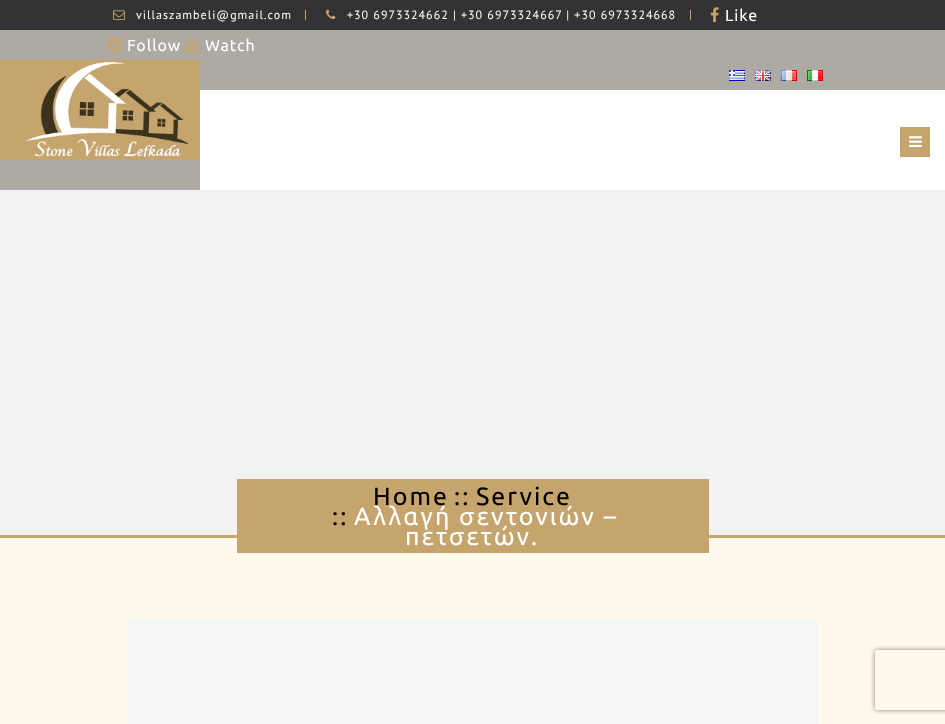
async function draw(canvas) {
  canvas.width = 945;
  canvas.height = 724;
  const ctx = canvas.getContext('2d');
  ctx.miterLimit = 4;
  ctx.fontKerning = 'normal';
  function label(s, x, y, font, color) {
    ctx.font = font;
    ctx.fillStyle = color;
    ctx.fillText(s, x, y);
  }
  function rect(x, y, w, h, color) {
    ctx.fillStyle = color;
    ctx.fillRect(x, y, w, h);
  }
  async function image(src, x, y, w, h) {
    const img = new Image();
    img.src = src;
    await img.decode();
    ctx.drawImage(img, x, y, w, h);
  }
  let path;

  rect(0, 0, 945, 724, '#fff8ed');
  rect(0, 0, 945, 30, '#333');
  await image('assets/img1.png', 113, 10, 12, 10);
  ctx.letterSpacing = '1px';
  label('villaszambeli@gmail.com', 136, 19, '12px PT Sans', '#fff');
  rect(305, 10, 1, 10, '#c5a46d');
  await image('assets/img2.png', 326, 9, 10, 10);
  label('+30 6973324662 | +30 6973324667 | +30 6973324668', 347, 19, '12px PT Sans', '#fff');
  rect(690, 10, 1, 10, '#c5a46d');
  await image('assets/img3.png', 710, 7, 9, 16);
  label('Like', 725, 21, '16px Ubuntu', '#fff');
  rect(0, 30, 945, 160, '#aea9a2');
  await image('assets/img4.png', 108, 38, 14, 15);
  label('Follow', 127, 51, '16px Ubuntu', '#fff');
  await image('assets/img5.png', 185, 37, 14, 17);
  label('Watch', 205, 51, '16px Ubuntu', '#fff');
  await image('assets/img6.png', 729, 70, 16, 11);
  await image('assets/img7.png', 755, 70, 16, 11);
  await image('assets/img8.png', 781, 70, 16, 11);
  await image('assets/img9.png', 807, 70, 16, 11);
  rect(0, 60, 200, 100, '#c5a46d');
  await image('assets/img10.png', 26, 62, 163, 95);
  rect(200, 90, 745, 100, '#fff');
  rect(900, 127, 30, 30, '#c5a46d');
  await image('assets/img11.png', 909, 136, 13, 11);
  rect(0, 535, 945, 3, '#c5a46d');
  rect(0, 190, 945, 345, '#f2f2f2');
  rect(237, 479, 472, 74, '#c5a46d');
  ctx.letterSpacing = '2px';
  label('Home', 373, 505, '25px Ubuntu', '#000');
  label('::', 454, 505, '25px Ubuntu', '#000');
  label('Service', 476, 505, '25px Ubuntu', '#000');
  label('::', 332, 525, '25px Ubuntu', '#000');
  label('Αλλαγή σεντονιών –', 354, 525, '25px Ubuntu', '#fff');
  label('πετσετών.', 405, 545, '25px Ubuntu', '#fff');
  rect(128, 618, 690, 106, '#f6f6f6');
  ctx.save();
  path = new Path2D('M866 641H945V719H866ZM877 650H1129C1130 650 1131 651 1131 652V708C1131 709 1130 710 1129 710H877C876 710 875 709 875 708V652C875 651 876 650 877 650Z');
  ctx.clip(path, 'evenodd');
  ctx.fillStyle = '#808080';
  ctx.filter = 'blur(2.5px)';
  ctx.beginPath();
  ctx.roundRect(875, 650, 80, 60, 2);
  ctx.fill();
  ctx.filter = 'none';
  ctx.restore();
}

draw(document.querySelector('canvas'));
